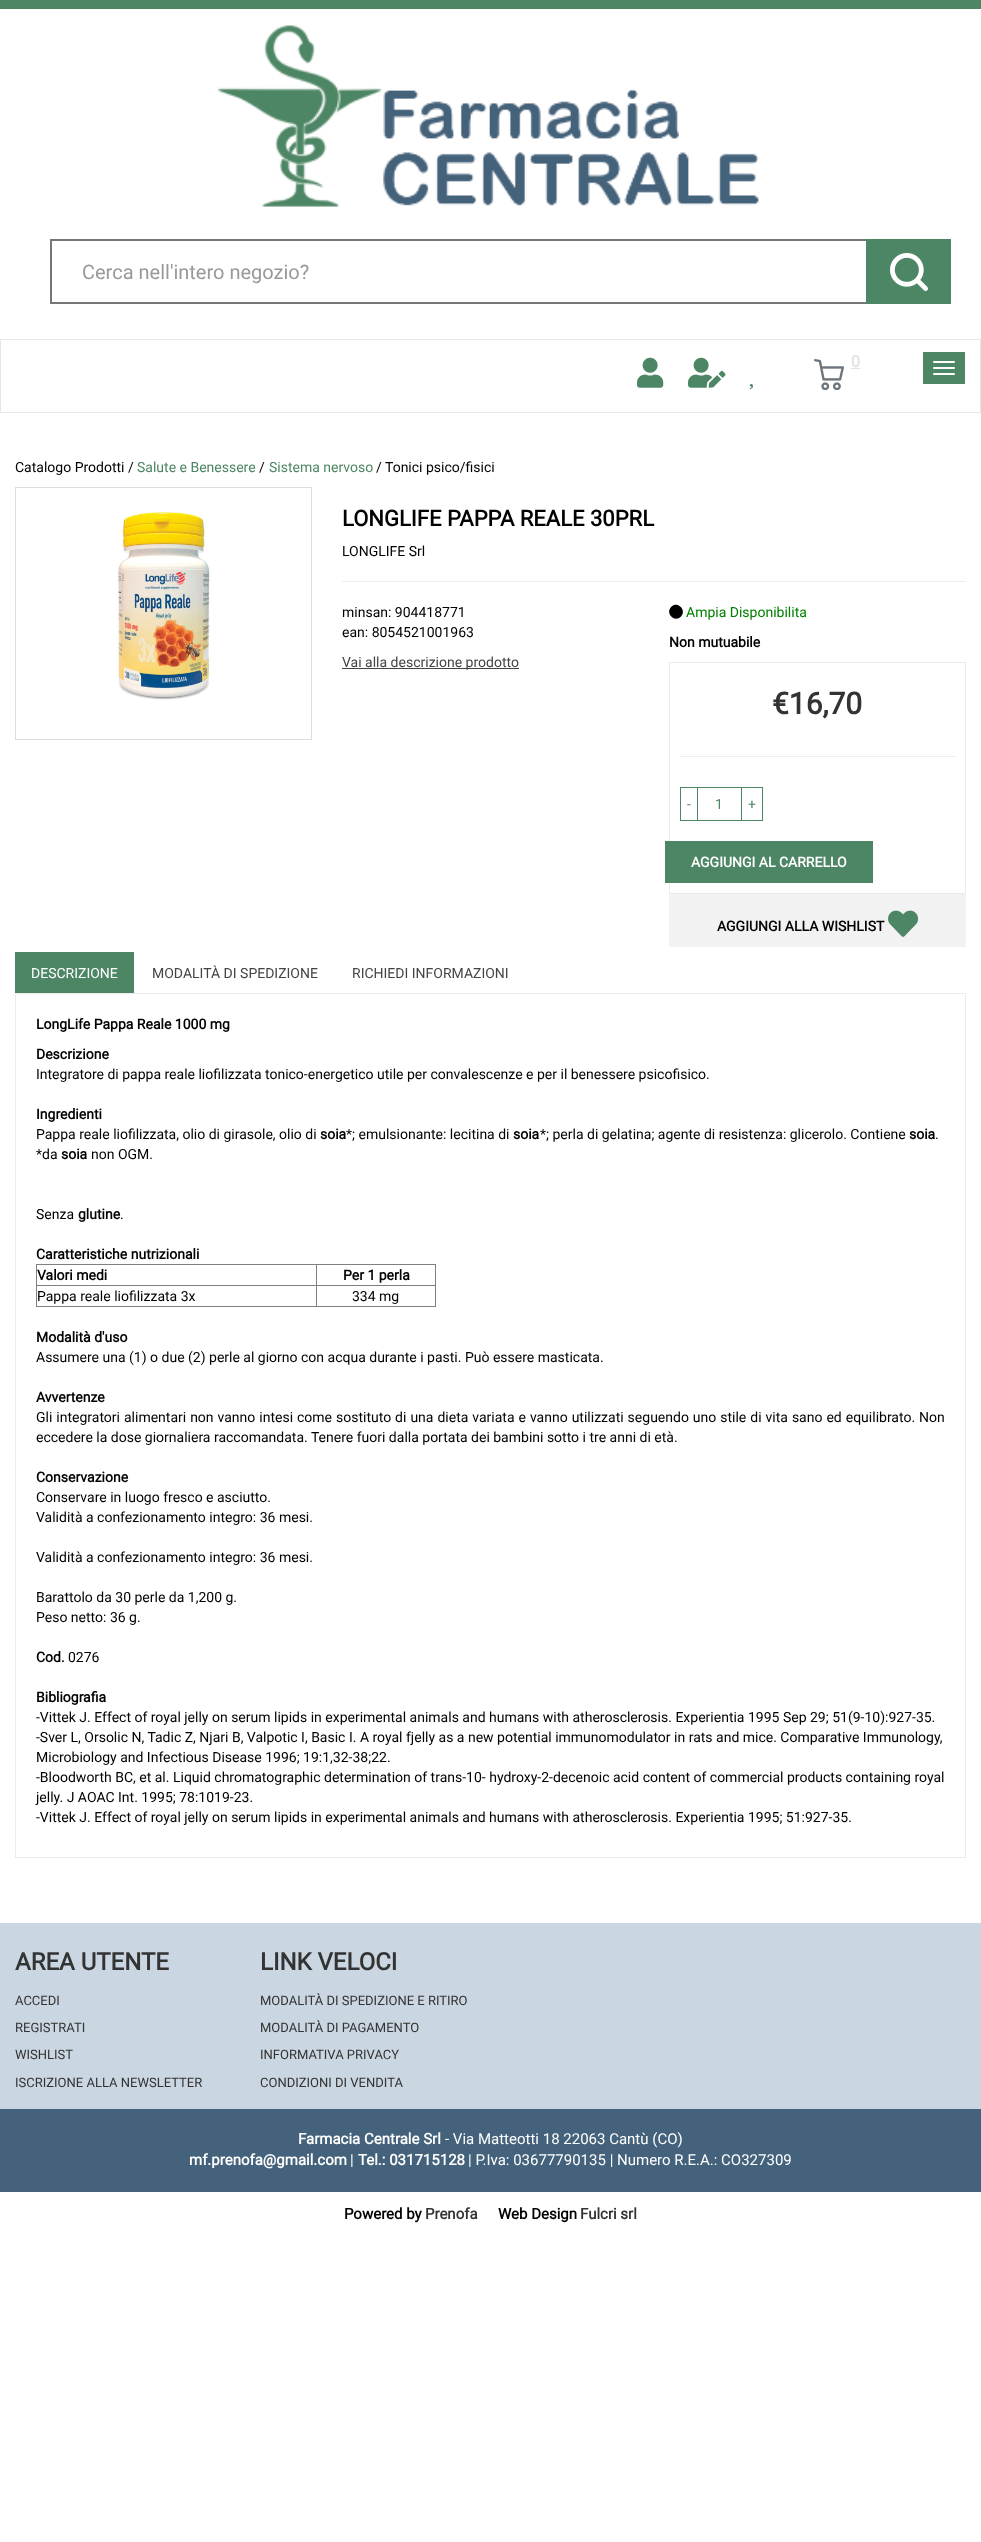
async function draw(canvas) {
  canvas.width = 981;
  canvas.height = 2542;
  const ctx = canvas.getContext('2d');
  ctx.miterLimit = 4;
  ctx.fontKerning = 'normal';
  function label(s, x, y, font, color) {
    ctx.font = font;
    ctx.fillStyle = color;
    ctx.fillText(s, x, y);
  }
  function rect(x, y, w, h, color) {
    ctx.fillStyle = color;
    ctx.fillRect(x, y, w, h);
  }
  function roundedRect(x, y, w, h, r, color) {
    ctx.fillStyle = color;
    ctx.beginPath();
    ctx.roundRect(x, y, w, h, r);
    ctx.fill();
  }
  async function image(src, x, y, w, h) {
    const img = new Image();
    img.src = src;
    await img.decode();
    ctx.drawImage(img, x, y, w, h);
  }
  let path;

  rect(0, 0, 981, 2542, '#fff');
  rect(0, 0, 981, 9, '#4d8664');
  await image('assets/img1.png', 217, 25, 542, 182);
  ctx.strokeStyle = '#777';
  ctx.lineWidth = 2;
  ctx.strokeRect(51, 240, 835, 63);
  label('Cerca nell\'intero negozio?', 82, 279, '20px Roboto', '#999');
  rect(866, 239, 85, 65, '#4d8664');
  await image('assets/img2.png', 890, 253, 38, 38);
  ctx.strokeStyle = '#e7e7e7';
  ctx.lineWidth = 1;
  ctx.strokeRect(0.5, 339.5, 980, 73);
  await image('assets/img3.png', 637, 357, 27, 31);
  await image('assets/img4.png', 688, 357, 38, 31);
  await image('assets/img5.png', 749, 384, 4, 6);
  await image('assets/img6.png', 814, 359, 30, 31);
  label('0', 851, 367, 'bold 16px Roboto', '#dee2e6');
  rect(851, 368, 9, 1, '#dee2e6');
  rect(923, 352, 42, 32, '#4d8664');
  roundedRect(933, 361, 22, 2, 1, '#fff');
  roundedRect(933, 367, 22, 2, 1, '#fff');
  roundedRect(933, 373, 22, 2, 1, '#fff');
  label('Catalogo Prodotti /', 15, 472, '14px Roboto', '#010102');
  label('Salute e Benessere', 137, 472, '14px Roboto', '#4d8664');
  label('/', 259, 472, '14px Roboto', '#010102');
  label('Sistema nervoso', 269, 472, '14px Roboto', '#4d8664');
  label('/ Tonici psico/fisici', 376, 472, '14px Roboto', '#010102');
  ctx.strokeStyle = '#ddd';
  ctx.strokeRect(15.5, 487.5, 296, 252);
  await image('assets/img7.png', 116, 511, 95, 189);
  label('LONGLIFE PAPPA REALE 30PRL', 342, 526, 'bold 22px Roboto', '#010102');
  label('LONGLIFE Srl', 342, 556, '14px Roboto', '#010102');
  rect(342, 581, 624, 1, '#eee');
  label('minsan: 904418771', 342, 617, '14px Roboto', '#010102');
  label('ean: 8054521001963', 342, 637, '14px Roboto', '#010102');
  rect(342, 668, 177, 1, '#444');
  label('Vai alla descrizione prodotto', 342, 667, '14px Roboto', '#444');
  ctx.fillStyle = '#000';
  path = new Path2D('M671 607C677.5 600.5 687 610 681 616.5C674.5 623 665 613.5 671 607Z');
  ctx.fill(path);
  label('Ampia Disponibilita', 686, 617, '14px Roboto', '#008000');
  label('Non mutuabile', 669, 647, 'bold 14px Roboto', '#010102');
  ctx.strokeStyle = '#ebebeb';
  ctx.strokeRect(669.5, 662.5, 296, 231);
  label('€16,70', 772, 714, 'bold 30px Roboto', '#333');
  rect(680, 756, 275, 1, '#eee');
  ctx.strokeStyle = '#4d8664';
  ctx.strokeRect(680.5, 787.5, 17, 33);
  label('-', 687, 809, '14px Roboto', '#4d8664');
  ctx.strokeRect(697.5, 787.5, 44, 33);
  label('1', 715, 809, '14px Roboto', '#4d8664');
  ctx.strokeRect(741.5, 787.5, 21, 33);
  label('+', 748, 809, '14px Roboto', '#4d8664');
  rect(665, 841, 208, 42, '#4d8664');
  label('AGGIUNGI AL CARRELLO', 691, 867, 'bold 14px Roboto', '#fff');
  rect(669, 894, 297, 53, '#f2f2f2');
  label('AGGIUNGI ALLA WISHLIST', 717, 931, 'bold 14px Roboto', '#010102');
  await image('assets/img8.png', 888, 910, 31, 27);
  rect(15, 952, 119, 41, '#4d8664');
  label('DESCRIZIONE', 31, 978, '14px Roboto', '#fff');
  label('MODALITÀ DI SPEDIZIONE', 152, 978, '14px Roboto', '#444');
  label('RICHIEDI INFORMAZIONI', 352, 978, '14px Roboto', '#444');
  ctx.strokeStyle = '#ebebeb';
  ctx.strokeRect(15.5, 993.5, 950, 864);
  label('LongLife Pappa Reale 1000 mg', 36, 1029, 'bold 14px Roboto', '#010102');
  label('Descrizione', 36, 1059, 'bold 14px Roboto', '#010102');
  label('Integratore di pappa reale liofilizzata tonico-energetico utile per convalescenze e per il benessere psicofisico.', 36, 1079, '14px Roboto', '#010102');
  label('Ingredienti', 36, 1119, 'bold 14px Roboto', '#010102');
  label('Pappa reale liofilizzata, olio di girasole, olio di', 36, 1139, '14px Roboto', '#010102');
  label('soia', 320, 1139, 'bold 14px Roboto', '#010102');
  label('*; emulsionante: lecitina di', 346, 1139, '14px Roboto', '#010102');
  label('soia', 513, 1139, 'bold 14px Roboto', '#010102');
  label('*; perla di gelatina; agente di resistenza: glicerolo. Contiene', 540, 1139, '14px Roboto', '#010102');
  label('soia', 909, 1139, 'bold 14px Roboto', '#010102');
  label('.', 935, 1139, '14px Roboto', '#010102');
  label('*da', 36, 1159, '14px Roboto', '#010102');
  label('soia', 61, 1159, 'bold 14px Roboto', '#010102');
  label('non OGM.', 91, 1159, '14px Roboto', '#010102');
  label('Senza', 36, 1219, '14px Roboto', '#010102');
  label('glutine', 78, 1219, 'bold 14px Roboto', '#010102');
  label('.', 120, 1219, '14px Roboto', '#010102');
  label('Caratteristiche nutrizionali', 36, 1259, 'bold 14px Roboto', '#010102');
  rect(36, 1264, 400, 1, '#808080');
  rect(435, 1264, 1, 43, '#808080');
  rect(36, 1306, 400, 1, '#808080');
  rect(36, 1264, 1, 43, '#808080');
  label('Valori medi', 37, 1280, 'bold 14px Roboto', '#010102');
  rect(316, 1285, 120, 1, '#808080');
  rect(316, 1285, 1, 22, '#808080');
  rect(36, 1285, 281, 1, '#808080');
  rect(316, 1264, 1, 22, '#808080');
  label('Per 1 perla', 343, 1280, 'bold 14px Roboto', '#010102');
  label('Pappa reale liofilizzata 3x', 37, 1301, '14px Roboto', '#010102');
  label('334 mg', 352, 1301, '14px Roboto', '#010102');
  label('Modalità d\'uso', 36, 1342, 'bold 14px Roboto', '#010102');
  label('Assumere una (1) o due (2) perle al giorno con acqua durante i pasti. Può essere masticata.', 36, 1362, '14px Roboto', '#010102');
  label('Avvertenze', 36, 1402, 'bold 14px Roboto', '#010102');
  ctx.wordSpacing = '0.5px';
  label('Gli integratori alimentari non vanno intesi come sostituto di una dieta variata e vanno utilizzati seguendo uno stile di vita sano ed equilibrato. Non', 36, 1422, '14px Roboto', '#010102');
  ctx.wordSpacing = '0px';
  label('eccedere la dose giornaliera raccomandata. Tenere fuori dalla portata dei bambini sotto i tre anni di età.', 36, 1442, '14px Roboto', '#010102');
  label('Conservazione', 36, 1482, 'bold 14px Roboto', '#010102');
  label('Conservare in luogo fresco e asciutto.', 36, 1502, '14px Roboto', '#010102');
  label('Validità a confezionamento integro: 36 mesi.', 36, 1522, '14px Roboto', '#010102');
  label('Validità a confezionamento integro: 36 mesi.', 36, 1562, '14px Roboto', '#010102');
  label('Barattolo da 30 perle da 1,200 g.', 36, 1602, '14px Roboto', '#010102');
  label('Peso netto: 36 g.', 36, 1622, '14px Roboto', '#010102');
  label('Cod.', 36, 1662, 'bold 14px Roboto', '#010102');
  label('0276', 68, 1662, '14px Roboto', '#010102');
  label('Bibliografia', 36, 1702, 'bold 14px Roboto', '#010102');
  label('-Vittek J. Effect of royal jelly on serum lipids in experimental animals and humans with atherosclerosis. Experientia 1995 Sep 29; 51(9-10):927-35.', 36, 1722, '14px Roboto', '#010102');
  label('-Sver L, Orsolic N, Tadic Z, Njari B, Valpotic I, Basic I. A royal fjelly as a new potential immunomodulator in rats and mice. Comparative Immunology,', 36, 1742, '14px Roboto', '#010102');
  label('Microbiology and Infectious Disease 1996; 19:1,32-38;22.', 36, 1762, '14px Roboto', '#010102');
  label('-Bloodworth BC, et al. Liquid chromatographic determination of trans-10- hydroxy-2-decenoic acid content of commercial products containing royal', 36, 1782, '14px Roboto', '#010102');
  label('jelly. J AOAC Int. 1995; 78:1019-23.', 36, 1802, '14px Roboto', '#010102');
  label('-Vittek J. Effect of royal jelly on serum lipids in experimental animals and humans with atherosclerosis. Experientia 1995; 51:927-35.', 36, 1822, '14px Roboto', '#010102');
  rect(0, 1923, 981, 186, '#cad6e1');
  label('AREA UTENTE', 15, 1970, 'bold 24px Roboto', '#333');
  label('ACCEDI', 15, 2005, '13px Roboto', '#333');
  label('REGISTRATI', 15, 2032, '13px Roboto', '#333');
  label('WISHLIST', 15, 2059, '13px Roboto', '#333');
  label('ISCRIZIONE ALLA NEWSLETTER', 15, 2087, '13px Roboto', '#333');
  label('LINK VELOCI', 260, 1970, 'bold 24px Roboto', '#333');
  label('MODALITÀ DI SPEDIZIONE E RITIRO', 260, 2005, '13px Roboto', '#333');
  label('MODALITÀ DI PAGAMENTO', 260, 2032, '13px Roboto', '#333');
  label('INFORMATIVA PRIVACY', 260, 2059, '13px Roboto', '#333');
  label('CONDIZIONI DI VENDITA', 260, 2087, '13px Roboto', '#333');
  rect(0, 2109, 981, 83, '#44627b');
  label('Farmacia Centrale Srl', 298, 2144, 'bold 15px Roboto', '#fff');
  label('- Via Matteotti 18 22063 Cantù (CO)', 445, 2144, '15px Roboto', '#fff');
  label('mf.prenofa@gmail.com', 189, 2165, 'bold 15px Roboto', '#fff');
  label('|', 350, 2165, '15px Roboto', '#fff');
  label('Tel.: 031715128', 358, 2165, 'bold 15px Roboto', '#fff');
  label('| P.Iva: 03677790135 | Numero R.E.A.: CO327309', 468, 2165, '15px Roboto', '#fff');
  label('Powered by', 344, 2219, 'bold 15px Roboto', '#010102');
  label('Prenofa', 425, 2219, 'bold 15px Roboto', '#333');
  label('Web Design', 498, 2219, 'bold 15px Roboto', '#010102');
  label('Fulcri srl', 580, 2219, 'bold 15px Roboto', '#333');
}

draw(document.querySelector('canvas'));
